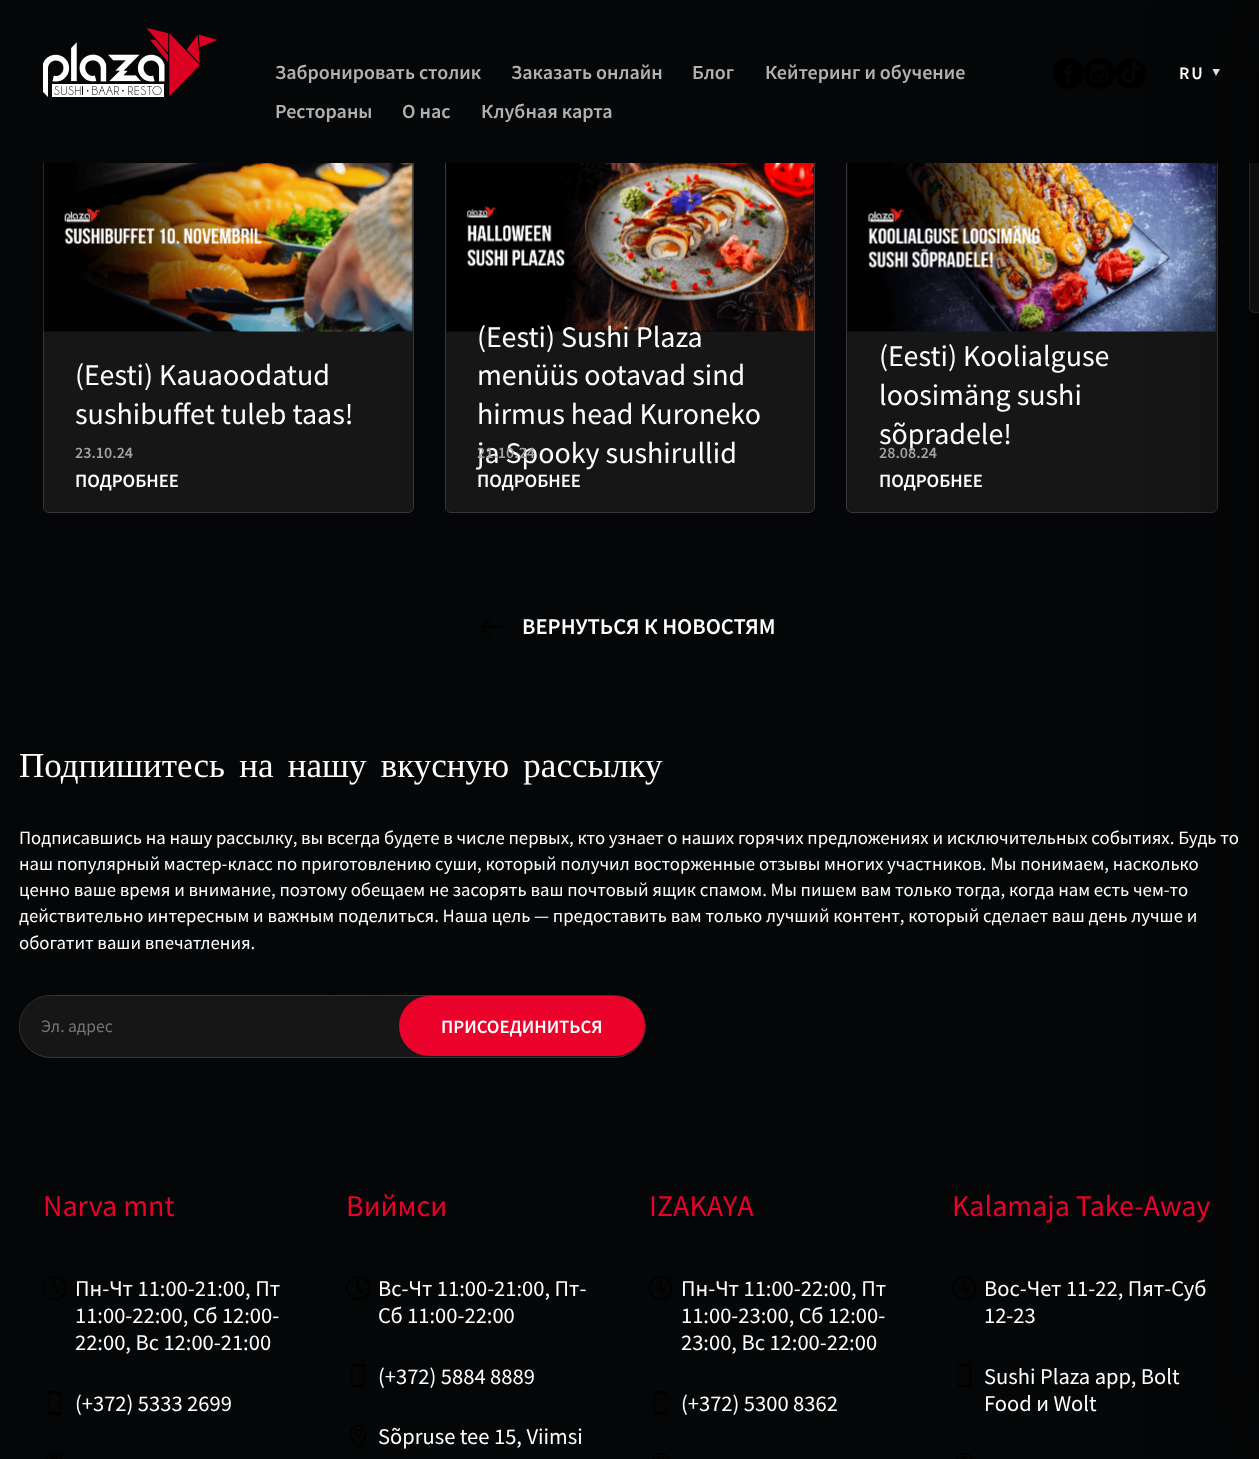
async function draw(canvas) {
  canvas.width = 1259;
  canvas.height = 1459;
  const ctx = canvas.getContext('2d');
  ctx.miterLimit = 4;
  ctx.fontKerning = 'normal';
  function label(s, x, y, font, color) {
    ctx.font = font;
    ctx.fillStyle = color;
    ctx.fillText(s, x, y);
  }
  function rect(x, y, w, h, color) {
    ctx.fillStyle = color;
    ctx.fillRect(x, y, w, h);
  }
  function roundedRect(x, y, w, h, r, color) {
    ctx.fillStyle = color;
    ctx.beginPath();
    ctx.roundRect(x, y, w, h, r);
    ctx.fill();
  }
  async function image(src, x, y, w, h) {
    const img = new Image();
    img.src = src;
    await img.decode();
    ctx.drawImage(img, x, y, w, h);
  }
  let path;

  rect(0, 0, 1259, 1459, '#050607');
  ctx.fillStyle = '#161616';
  path = new Path2D('M1255 130H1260V313H1255C1251.5 313 1249 310.5 1249 307V136C1249 132.5 1251.5 130 1255 130Z');
  ctx.fill(path);
  ctx.beginPath();
  ctx.roundRect(1249.5, 130.5, 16, 182, 5.5);
  ctx.strokeStyle = '#373535';
  ctx.stroke();
  ctx.beginPath();
  ctx.roundRect(43.5, 130.5, 370, 382, 5.5);
  ctx.fill();
  ctx.stroke();
  ctx.beginPath();
  ctx.roundRect(445.5, 130.5, 369, 382, 5.5);
  ctx.fill();
  ctx.stroke();
  ctx.beginPath();
  ctx.roundRect(846.5, 130.5, 371, 382, 5.5);
  ctx.fill();
  ctx.stroke();
  rect(43, 130, 1216, 33, '#050607');
  await image('assets/img3.png', 1084, 58, 31, 31);
  await image('assets/img4.png', 1115, 58, 31, 31);
  ctx.fillStyle = '#fff';
  path = new Path2D('M1212.5 69H1220L1216 76Z');
  ctx.fill(path);
  await image('assets/img7.png', 847, 163, 370, 169);
  ctx.fillStyle = '#000000cc';
  ctx.filter = 'blur(50px)';
  ctx.beginPath();
  ctx.rect(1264, 4, 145, 1452);
  ctx.fill();
  ctx.filter = 'none';
  await image('assets/img1.png', 43, 28, 175, 69);
  label('Забронировать столик', 275, 79, '600 20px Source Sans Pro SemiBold', '#b1b1b1');
  label('Заказать онлайн', 511, 79, '600 20px Source Sans Pro SemiBold', '#b1b1b1');
  label('Блог', 692, 79, '600 20px Source Sans Pro SemiBold', '#b1b1b1');
  label('Кейтеринг и обучение', 765, 79, '600 20px Source Sans Pro SemiBold', '#b1b1b1');
  label('Рестораны', 275, 118, '600 20px Source Sans Pro SemiBold', '#b1b1b1');
  label('О нас', 402, 118, '600 20px Source Sans Pro SemiBold', '#b1b1b1');
  label('Клубная карта', 481, 118, '600 20px Source Sans Pro SemiBold', '#b1b1b1');
  await image('assets/img2.png', 1053, 58, 31, 31);
  ctx.letterSpacing = '2px';
  label('RU', 1179, 79, '600 17.5px Source Sans Pro SemiBold', '#fff');
  await image('assets/img5.png', 43, 163, 370, 169);
  ctx.letterSpacing = '0px';
  label('(Eesti) Kauaoodatud', 75, 385, '30px Source Sans Pro', '#fff');
  label('sushibuffet tuleb taas!', 75, 424, '30px Source Sans Pro', '#fff');
  label('23.10.24', 75, 458, '600 16px Source Sans Pro SemiBold', '#a3a3a3');
  label('ПОДРОБНЕЕ', 75, 487, '600 18.75px Source Sans Pro SemiBold', '#fff');
  await image('assets/img6.png', 446, 163, 369, 169);
  label('(Eesti) Sushi Plaza', 477, 347, '30px Source Sans Pro', '#fff');
  label('menüüs ootavad sind', 477, 385, '30px Source Sans Pro', '#fff');
  label('hirmus head Kuroneko', 477, 424, '30px Source Sans Pro', '#fff');
  label('ja Spooky sushirullid', 477, 463, '30px Source Sans Pro', '#fff');
  label('21.10.24', 477, 458, '600 16px Source Sans Pro SemiBold', '#a3a3a3');
  label('ПОДРОБНЕЕ', 477, 487, '600 18.75px Source Sans Pro SemiBold', '#fff');
  label('(Eesti) Koolialguse', 879, 366, '30px Source Sans Pro', '#fff');
  label('loosimäng sushi', 879, 405, '30px Source Sans Pro', '#fff');
  label('sõpradele!', 879, 444, '30px Source Sans Pro', '#fff');
  label('28.08.24', 879, 458, '600 16px Source Sans Pro SemiBold', '#a3a3a3');
  label('ПОДРОБНЕЕ', 879, 487, '600 18.75px Source Sans Pro SemiBold', '#fff');
  await image('assets/img8.png', 481, 618, 24, 17);
  label('ВЕРНУТЬСЯ К НОВОСТЯМ', 522, 634, '600 22.5px Source Sans Pro SemiBold', '#fff');
  ctx.wordSpacing = '5.5px';
  label('Подпишитесь на нашу вкусную рассылку', 19, 777, '35px Liberation Serif', '#fff');
  ctx.wordSpacing = '0px';
  label('Подписавшись на нашу рассылку, вы всегда будете в числе первых, кто узнает о наших горячих предложениях и исключительных событиях. Будь то', 19, 844, '18.75px Source Sans Pro', '#fff');
  label('наш популярный мастер-класс по приготовлению суши, который получил восторженные отзывы многих участников. Мы понимаем, насколько', 19, 870, '18.75px Source Sans Pro', '#fff');
  label('ценно ваше время и внимание, поэтому обещаем не засорять ваш почтовый ящик спамом. Мы пишем вам только тогда, когда нам есть чем-то', 19, 896, '18.75px Source Sans Pro', '#fff');
  label('действительно интересным и важным поделиться. Наша цель — предоставить вам только лучший контент, который сделает ваш день лучше и', 19, 922, '18.75px Source Sans Pro', '#fff');
  label('обогатит ваши впечатления.', 19, 949, '18.75px Source Sans Pro', '#fff');
  ctx.fillStyle = '#161616';
  ctx.beginPath();
  ctx.roundRect(19.5, 995.5, 626, 62, 31);
  ctx.fill();
  ctx.stroke();
  roundedRect(20, 996, 379, 60, 30, '#161616');
  label('Эл. адрес', 41, 1032, '17.5px Source Sans Pro', '#757575');
  roundedRect(399, 996, 246, 60, 30, '#eb022a');
  label('ПРИСОЕДИНИТЬСЯ', 441, 1033, '600 18.75px Source Sans Pro SemiBold', '#fff');
  label('Narva mnt', 43, 1216, '30px Source Sans Pro', '#eb0029');
  await image('assets/img9.png', 43, 1276, 23, 24);
  label('Пн-Чт 11:00-21:00, Пт', 75, 1296, '22.5px Source Sans Pro', '#fff');
  label('11:00-22:00, Сб 12:00-', 75, 1323, '22.5px Source Sans Pro', '#fff');
  label('22:00, Вс 12:00-21:00', 75, 1350, '22.5px Source Sans Pro', '#fff');
  await image('assets/img10.png', 48, 1391, 13, 24);
  label('(+372) 5333 2699', 75, 1411, '22.5px Source Sans Pro', '#fff');
  await image('assets/img11.png', 46, 1453, 16, 6);
  label('Виймси', 346, 1216, '30px Source Sans Pro', '#eb0029');
  await image('assets/img12.png', 346, 1276, 24, 24);
  label('Вс-Чт 11:00-21:00, Пт-', 378, 1296, '22.5px Source Sans Pro', '#fff');
  label('Сб 11:00-22:00', 378, 1323, '22.5px Source Sans Pro', '#fff');
  await image('assets/img13.png', 351, 1364, 14, 23);
  label('(+372) 5884 8889', 378, 1384, '22.5px Source Sans Pro', '#fff');
  await image('assets/img14.png', 350, 1425, 16, 24);
  label('Sõpruse tee 15, Viimsi', 378, 1444, '22.5px Source Sans Pro', '#fff');
  label('IZAKAYA', 649, 1216, '30px Source Sans Pro', '#eb0029');
  await image('assets/img15.png', 649, 1276, 23, 24);
  label('Пн-Чт 11:00-22:00, Пт', 681, 1296, '22.5px Source Sans Pro', '#fff');
  label('11:00-23:00, Сб 12:00-', 681, 1323, '22.5px Source Sans Pro', '#fff');
  label('23:00, Вс 12:00-22:00', 681, 1350, '22.5px Source Sans Pro', '#fff');
  await image('assets/img16.png', 654, 1391, 13, 24);
  label('(+372) 5300 8362', 681, 1411, '22.5px Source Sans Pro', '#fff');
  await image('assets/img17.png', 653, 1453, 16, 6);
  label('Kalamaja Take-Away', 952, 1216, '30px Source Sans Pro', '#eb0029');
  await image('assets/img9.png', 953, 1276, 23, 24);
  label('Вос-Чет 11-22, Пят-Суб', 984, 1296, '22.5px Source Sans Pro', '#fff');
  label('12-23', 984, 1323, '22.5px Source Sans Pro', '#fff');
  await image('assets/img18.png', 958, 1364, 13, 23);
  label('Sushi Plaza app, Bolt', 984, 1384, '22.5px Source Sans Pro', '#fff');
  label('Food и Wolt', 984, 1411, '22.5px Source Sans Pro', '#fff');
  await image('assets/img11.png', 956, 1453, 16, 6);
}

draw(document.querySelector('canvas'));
